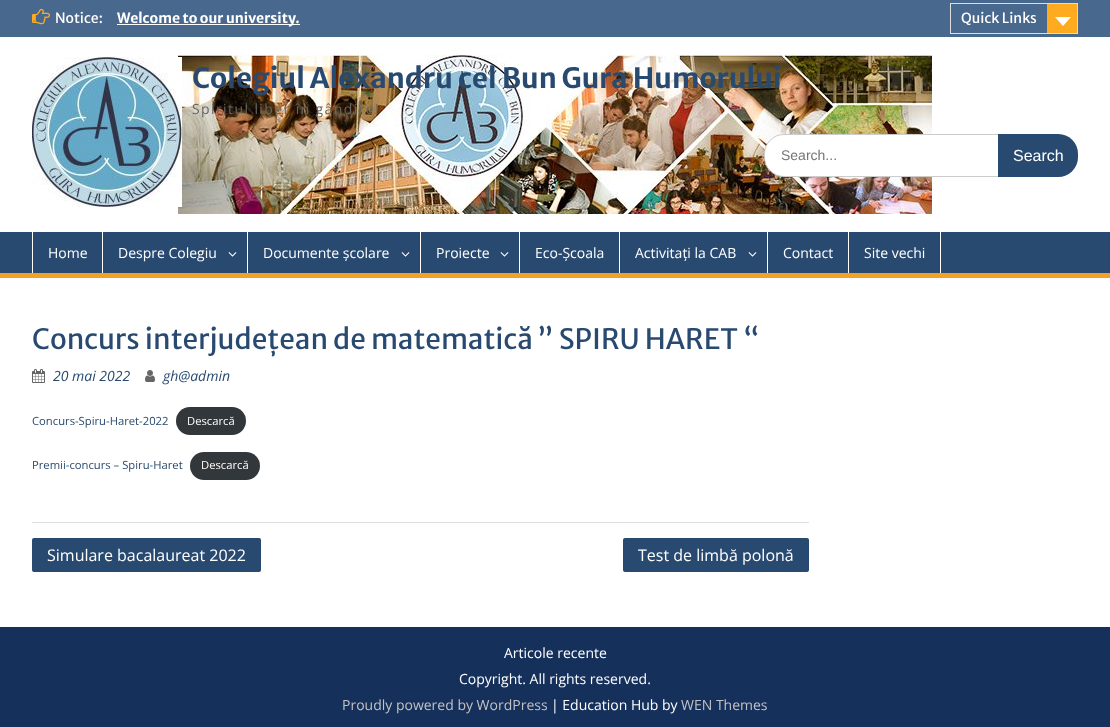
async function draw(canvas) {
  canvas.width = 1110;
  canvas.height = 727;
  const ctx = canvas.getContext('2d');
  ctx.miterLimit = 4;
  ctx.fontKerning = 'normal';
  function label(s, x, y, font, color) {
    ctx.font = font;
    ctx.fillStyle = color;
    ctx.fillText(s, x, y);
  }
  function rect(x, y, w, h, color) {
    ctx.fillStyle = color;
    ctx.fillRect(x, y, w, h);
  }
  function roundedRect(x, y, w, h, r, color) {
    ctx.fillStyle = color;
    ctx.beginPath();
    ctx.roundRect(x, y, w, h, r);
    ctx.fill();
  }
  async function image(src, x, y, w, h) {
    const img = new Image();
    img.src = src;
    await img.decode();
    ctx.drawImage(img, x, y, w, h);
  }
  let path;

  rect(0, 0, 1110, 727, '#fff');
  rect(0, 0, 1110, 37, '#49688e');
  await image('assets/img1.png', 32, 8, 18, 17);
  label('Notice:', 55, 23, '14px Merriweather Sans', '#fff');
  rect(117, 24, 183, 1, '#fff');
  label('Welcome to our university.', 117, 23, 'bold 14px Merriweather Sans', '#fff');
  ctx.strokeStyle = '#ddd';
  ctx.strokeRect(950.5, 3.5, 127, 30);
  label('Quick Links', 961, 23, '14px Merriweather Sans', '#fff');
  rect(1047, 4, 30, 29, '#ffab1f');
  ctx.fillStyle = '#fff';
  path = new Path2D('M1055 17H1071L1063 26Z');
  ctx.fill(path);
  await image('assets/img2.png', 178, 55, 754, 159);
  await image('assets/img3.png', 32, 57, 150, 150);
  label('Colegiul Alexandru cel Bun Gura Humorului', 192, 88, 'bold 28px Merriweather Sans', '#294a70');
  ctx.letterSpacing = '1.4px';
  label('Spiritul liber în gândire!', 192, 114, '14px Open Sans', '#666');
  ctx.fillStyle = '#fff';
  ctx.beginPath();
  ctx.roundRect(764.5, 134.5, 313, 42, 19.5);
  ctx.fill();
  ctx.strokeStyle = '#ccc';
  ctx.stroke();
  ctx.letterSpacing = '0px';
  label('Search...', 781, 160, '14px Liberation Sans', '#757575');
  ctx.fillStyle = '#294a70';
  ctx.beginPath();
  ctx.roundRect(998, 134, 80, 43, [0, 20, 20, 0]);
  ctx.fill();
  label('Search', 1013, 161, '16px Liberation Sans', '#fff');
  rect(0, 232, 1110, 41, '#294a70');
  rect(0, 273, 1110, 5, '#f4a024');
  rect(102, 232, 1, 41, '#fff');
  rect(32, 232, 1, 41, '#fff');
  label('Home', 48, 258, '14px Open Sans', '#fff');
  rect(247, 232, 1, 41, '#fff');
  label('Despre Colegiu', 118, 258, '14px Open Sans', '#fff');
  await image('assets/img4.png', 228, 252, 9, 5);
  rect(420, 232, 1, 41, '#fff');
  label('Documente școlare', 263, 258, '14px Open Sans', '#fff');
  await image('assets/img4.png', 401, 252, 9, 5);
  rect(519, 232, 1, 41, '#fff');
  label('Proiecte', 436, 258, '14px Open Sans', '#fff');
  await image('assets/img4.png', 500, 252, 9, 5);
  rect(619, 232, 1, 41, '#fff');
  label('Eco-Școala', 535, 258, '14px Open Sans', '#fff');
  rect(767, 232, 1, 41, '#fff');
  label('Activitați la CAB', 635, 258, '14px Open Sans', '#fff');
  await image('assets/img4.png', 748, 252, 9, 5);
  rect(848, 232, 1, 41, '#fff');
  label('Contact', 783, 258, '14px Open Sans', '#fff');
  rect(940, 232, 1, 41, '#fff');
  label('Site vechi', 864, 258, '14px Open Sans', '#fff');
  rect(32, 522, 777, 1, '#ddd');
  label('Concurs interjudețean de matematică ” SPIRU HARET “', 32, 349, '28px Merriweather Sans', '#294a70');
  await image('assets/img5.png', 32, 369, 13, 14);
  label('20 mai 2022', 53, 381, 'italic 14px Open Sans', '#294a70');
  await image('assets/img6.png', 145, 370, 10, 12);
  label('gh@admin', 163, 381, 'italic 14px Open Sans', '#294a70');
  label('Concurs-Spiru-Haret-2022', 32, 425, '11.25px Open Sans', '#294a70');
  roundedRect(176, 407, 70, 28, 14, '#32373c');
  label('Descarcă', 187, 425, '11.25px Open Sans', '#fff');
  label('Premii-concurs – Spiru-Haret', 32, 469, '11.25px Open Sans', '#294a70');
  roundedRect(190, 452, 70, 28, 14, '#32373c');
  label('Descarcă', 201, 469, '11.25px Open Sans', '#fff');
  roundedRect(32, 538, 229, 34, 2, '#294a70');
  label('Simulare bacalaureat 2022', 47, 561, '16px Open Sans', '#fff');
  roundedRect(623, 538, 186, 34, 2, '#294a70');
  label('Test de limbă polonă', 638, 561, '16px Open Sans', '#fff');
  rect(0, 627, 1110, 100, '#15305b');
  label('Articole recente', 504, 658, '14px Open Sans', '#fff');
  label('Copyright. All rights reserved.', 459, 684, '14px Open Sans', '#fff');
  label('Proudly powered by WordPress', 342, 710, '14px Open Sans', '#c2c2c2');
  label('| Education Hub by', 551, 710, '14px Open Sans', '#fff');
  label('WEN Themes', 681, 710, '14px Open Sans', '#c2c2c2');
}

draw(document.querySelector('canvas'));
